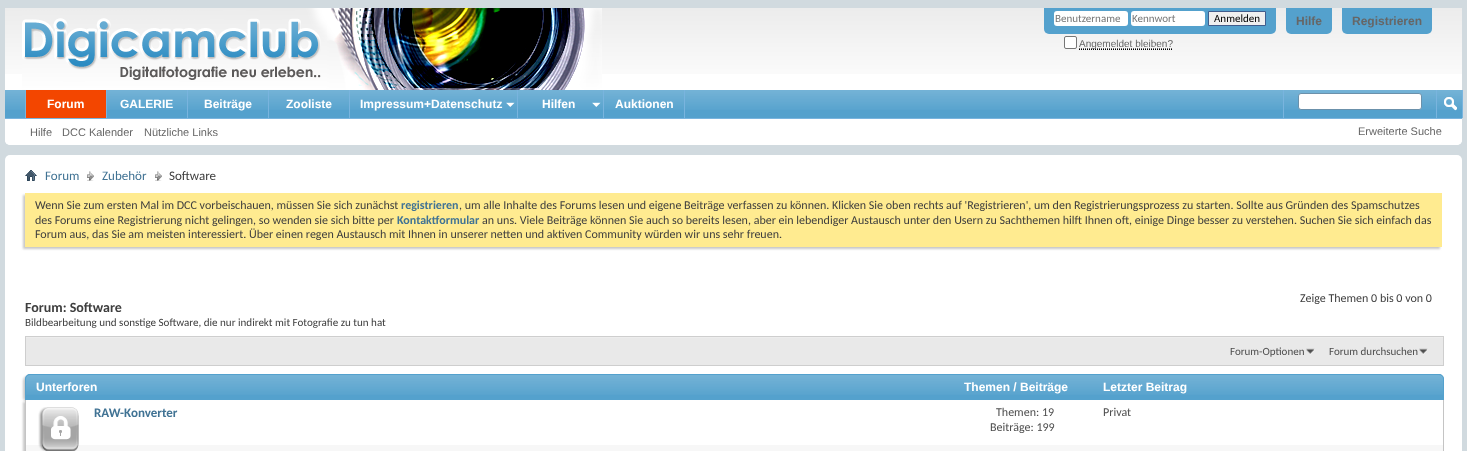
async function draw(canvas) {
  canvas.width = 1467;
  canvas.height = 451;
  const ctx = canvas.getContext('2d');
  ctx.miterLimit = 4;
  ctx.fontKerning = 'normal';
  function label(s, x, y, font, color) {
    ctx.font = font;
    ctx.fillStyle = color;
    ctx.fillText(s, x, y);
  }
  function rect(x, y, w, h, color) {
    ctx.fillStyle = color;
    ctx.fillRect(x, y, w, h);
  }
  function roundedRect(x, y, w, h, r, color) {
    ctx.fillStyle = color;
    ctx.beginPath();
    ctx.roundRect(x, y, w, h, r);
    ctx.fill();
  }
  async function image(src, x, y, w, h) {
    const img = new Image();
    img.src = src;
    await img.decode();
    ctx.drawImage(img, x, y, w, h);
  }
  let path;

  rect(0, 0, 1467, 451, '#d1dadf');
  ctx.fillStyle = '#fff';
  ctx.beginPath();
  ctx.roundRect(5, 8, 1457, 137, [0, 0, 5, 5]);
  ctx.fill();
  await image('assets/img1.png', 5, 8, 1457, 66);
  await image('assets/img2.png', 22, 8, 580, 82);
  ctx.fillStyle = '#54a1cd';
  ctx.beginPath();
  ctx.roundRect(1044, 8, 232, 26, [0, 0, 5, 5]);
  ctx.fill();
  roundedRect(1054, 11, 74, 15, 3, '#fff');
  label('Benutzername', 1055, 22, '11px Carlito', '#777');
  roundedRect(1131, 11, 74, 15, 3, '#fff');
  label('Kennwort', 1132, 22, '11px Carlito', '#777');
  ctx.fillStyle = '#efefef';
  ctx.beginPath();
  ctx.rect(1208.5, 11.5, 57, 14);
  ctx.fill();
  ctx.strokeStyle = '#415d8d';
  ctx.stroke();
  label('Anmelden', 1214, 22, '11px Carlito', '#000');
  ctx.fillStyle = '#fff';
  ctx.beginPath();
  ctx.roundRect(1064.5, 36.5, 12, 12, 1.5);
  ctx.fill();
  ctx.strokeStyle = '#767676';
  ctx.stroke();
  path = new Path2D('M1079 49.5H1173');
  ctx.strokeStyle = '#000';
  ctx.setLineDash([1, 1]);
  ctx.stroke(path);
  path = new Path2D('M1079 48.5H1173');
  ctx.strokeStyle = '#666';
  ctx.stroke(path);
  label('Angemeldet bleiben?', 1079, 47, '10px Liberation Sans', '#666');
  ctx.fillStyle = '#54a1cd';
  ctx.beginPath();
  ctx.roundRect(1286, 8, 46, 26, [0, 0, 5, 5]);
  ctx.fill();
  label('Hilfe', 1296, 25, 'bold 12px Liberation Sans', '#666');
  ctx.fillStyle = '#54a1cd';
  ctx.beginPath();
  ctx.roundRect(1342, 8, 90, 26, [0, 0, 5, 5]);
  ctx.fill();
  label('Registrieren', 1352, 25, 'bold 12px Liberation Sans', '#666');
  ctx.fillStyle = '#fff';
  ctx.beginPath();
  ctx.roundRect(5, 90, 1457, 55, [0, 0, 5, 5]);
  ctx.fill();
  rect(5, 90, 1457, 28, '#54a1cd');
  await image('assets/img3.png', 5, 90, 1457, 20);
  rect(106, 90, 1, 28, '#79b4de');
  rect(25, 90, 1, 28, '#79b4de');
  rect(26, 90, 80, 28, '#f34600');
  label('Forum', 47, 108, 'bold 12px Liberation Sans', '#fff');
  rect(5, 118, 1457, 1, '#79b4de');
  label('Hilfe', 30, 136, '11px Liberation Sans', '#666');
  label('DCC Kalender', 62, 136, '11px Liberation Sans', '#666');
  label('Nützliche Links', 144, 136, '11px Liberation Sans', '#666');
  rect(187, 90, 1, 28, '#79b4de');
  rect(107, 90, 80, 20, '#54a1cd');
  await image('assets/img4.png', 107, 90, 80, 20);
  label('GALERIE', 120, 108, 'bold 12px Liberation Sans', '#fff');
  rect(268, 90, 1, 28, '#79b4de');
  rect(188, 90, 80, 20, '#54a1cd');
  await image('assets/img4.png', 188, 90, 80, 20);
  label('Beiträge', 204, 108, 'bold 12px Liberation Sans', '#fff');
  rect(349, 90, 1, 28, '#79b4de');
  rect(269, 90, 80, 20, '#54a1cd');
  await image('assets/img4.png', 269, 90, 80, 20);
  label('Zooliste', 286, 108, 'bold 12px Liberation Sans', '#fff');
  rect(517, 90, 1, 28, '#79b4de');
  await image('assets/img5.png', 506, 102, 9, 5);
  label('Impressum+Datenschutz', 360, 108, 'bold 12px Liberation Sans', '#fff');
  rect(603, 90, 1, 28, '#79b4de');
  await image('assets/img5.png', 592, 102, 9, 5);
  label('Hilfen', 542, 108, 'bold 12px Liberation Sans', '#fff');
  rect(684, 90, 1, 28, '#79b4de');
  rect(604, 90, 80, 20, '#54a1cd');
  await image('assets/img4.png', 604, 90, 80, 20);
  label('Auktionen', 615, 108, 'bold 12px Liberation Sans', '#fff');
  rect(1283, 90, 1, 28, '#79b4de');
  ctx.fillStyle = '#fff';
  ctx.beginPath();
  ctx.roundRect(1298.5, 93.5, 123, 16, 2.5);
  ctx.fill();
  ctx.strokeStyle = '#6b91ab';
  ctx.setLineDash([]);
  ctx.stroke();
  rect(1462, 90, 1, 28, '#79b4de');
  rect(1436, 90, 1, 28, '#79b4de');
  await image('assets/img6.png', 1444, 97, 13, 14);
  label('Erweiterte Suche', 1358, 135, '11px Liberation Sans', '#666');
  roundedRect(5, 155, 1457, 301, 5, '#fff');
  await image('assets/img7.png', 25, 170, 12, 11);
  await image('assets/img8.png', 87, 171, 7, 10);
  label('Forum', 45, 180, '13px Carlito', '#417394');
  await image('assets/img8.png', 155, 171, 7, 10);
  label('Zubehör', 102, 180, '13px Carlito', '#417394');
  label('Software', 169, 180, '13px Carlito', '#3e3e3e');
  ctx.fillStyle = '#c8c8c8';
  ctx.filter = 'blur(1px)';
  ctx.beginPath();
  ctx.rect(23, 195, 1417, 54);
  ctx.fill();
  ctx.filter = 'none';
  rect(25, 193, 1417, 54, '#ffeb90');
  label('Wenn Sie zum ersten Mal im DCC vorbeischauen, müssen Sie sich zunächst', 35, 209, '12px Carlito', '#3e3e3e');
  label('registrieren', 401, 209, 'bold 12px Carlito', '#417394');
  label(', um alle Inhalte des Forums lesen und eigene Beiträge verfassen zu können. Klicken Sie oben rechts auf \'Registrieren\', um den Registrierungsprozess zu starten. Sollte aus Gründen des Spamschutzes', 459, 209, '12px Carlito', '#3e3e3e');
  label('des Forums eine Registrierung nicht gelingen, so wenden sie sich bitte per', 35, 224, '12px Carlito', '#3e3e3e');
  label('Kontaktformular', 397, 224, 'bold 12px Carlito', '#417394');
  label('an uns. Viele Beiträge können Sie auch so bereits lesen, aber ein lebendiger Austausch unter den Usern zu Sachthemen hilft Ihnen oft, einige Dinge besser zu verstehen. Suchen Sie sich einfach das', 482, 224, '12px Carlito', '#3e3e3e');
  label('Forum aus, das Sie am meisten interessiert. Über einen regen Austausch mit Ihnen in unserer netten und aktiven Community würden wir uns sehr freuen.', 35, 238, '12px Carlito', '#3e3e3e');
  label('Zeige Themen 0 bis 0 von 0', 1300, 302, '12px Carlito', '#3e3e3e');
  label('Forum: Software', 25, 312, 'bold 14px Carlito', '#3e3e3e');
  label('Bildbearbeitung und sonstige Software, die nur indirekt mit Fotografie zu tun hat', 25, 326, '11.05px Carlito', '#3e3e3e');
  rect(26, 338, 1417, 27, '#e9e9e9');
  rect(25, 337, 1419, 1, '#ededed');
  ctx.strokeStyle = '#cecece';
  ctx.strokeRect(25.5, 336.5, 1418, 29);
  await image('assets/img9.png', 1306, 348, 9, 7);
  label('Forum-Optionen', 1230, 355, '11px Carlito', '#4e4e4e');
  await image('assets/img9.png', 1419, 348, 9, 7);
  label('Forum durchsuchen', 1329, 355, '11px Carlito', '#4e4e4e');
  ctx.fillStyle = '#c8c8c8';
  ctx.filter = 'blur(1px)';
  ctx.beginPath();
  ctx.roundRect(23, 376, 1419, 26, 5);
  ctx.fill();
  ctx.filter = 'none';
  ctx.fillStyle = '#54a1cd';
  ctx.beginPath();
  ctx.roundRect(25, 374, 1419, 26, [5, 5, 0, 0]);
  ctx.fill();
  await image('assets/img10.png', 25, 375, 1419, 20);
  ctx.beginPath();
  ctx.roundRect(25.5, 374.5, 1418, 25, [4.5, 4.5, 0, 0]);
  ctx.strokeStyle = '#54a1cd';
  ctx.stroke();
  label('Unterforen', 36, 391, 'bold 12px Liberation Sans', '#fff');
  label('Themen / Beiträge', 964, 391, 'bold 12px Liberation Sans', '#fff');
  label('Letzter Beitrag', 1103, 391, 'bold 12px Liberation Sans', '#fff');
  ctx.fillStyle = '#c8c8c8';
  ctx.filter = 'blur(1px)';
  ctx.beginPath();
  ctx.rect(23, 402, 1419, 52);
  ctx.fill();
  ctx.filter = 'none';
  rect(26, 400, 1417, 45, '#fff');
  rect(25, 445, 1419, 6, '#f7f7f7');
  rect(1443, 400, 1, 51, '#c4c4c4');
  rect(25, 400, 1, 51, '#c4c4c4');
  await image('assets/img11.png', 38, 407, 41, 44);
  label('RAW-Konverter', 94, 417, 'bold 13px Carlito', '#417394');
  label('Themen: 19', 996, 416, '12px Carlito', '#4e4e4e');
  label('Beiträge: 199', 990, 431, '12px Carlito', '#4e4e4e');
  label('Privat', 1103, 416, '12px Carlito', '#4e4e4e');
}

draw(document.querySelector('canvas'));
